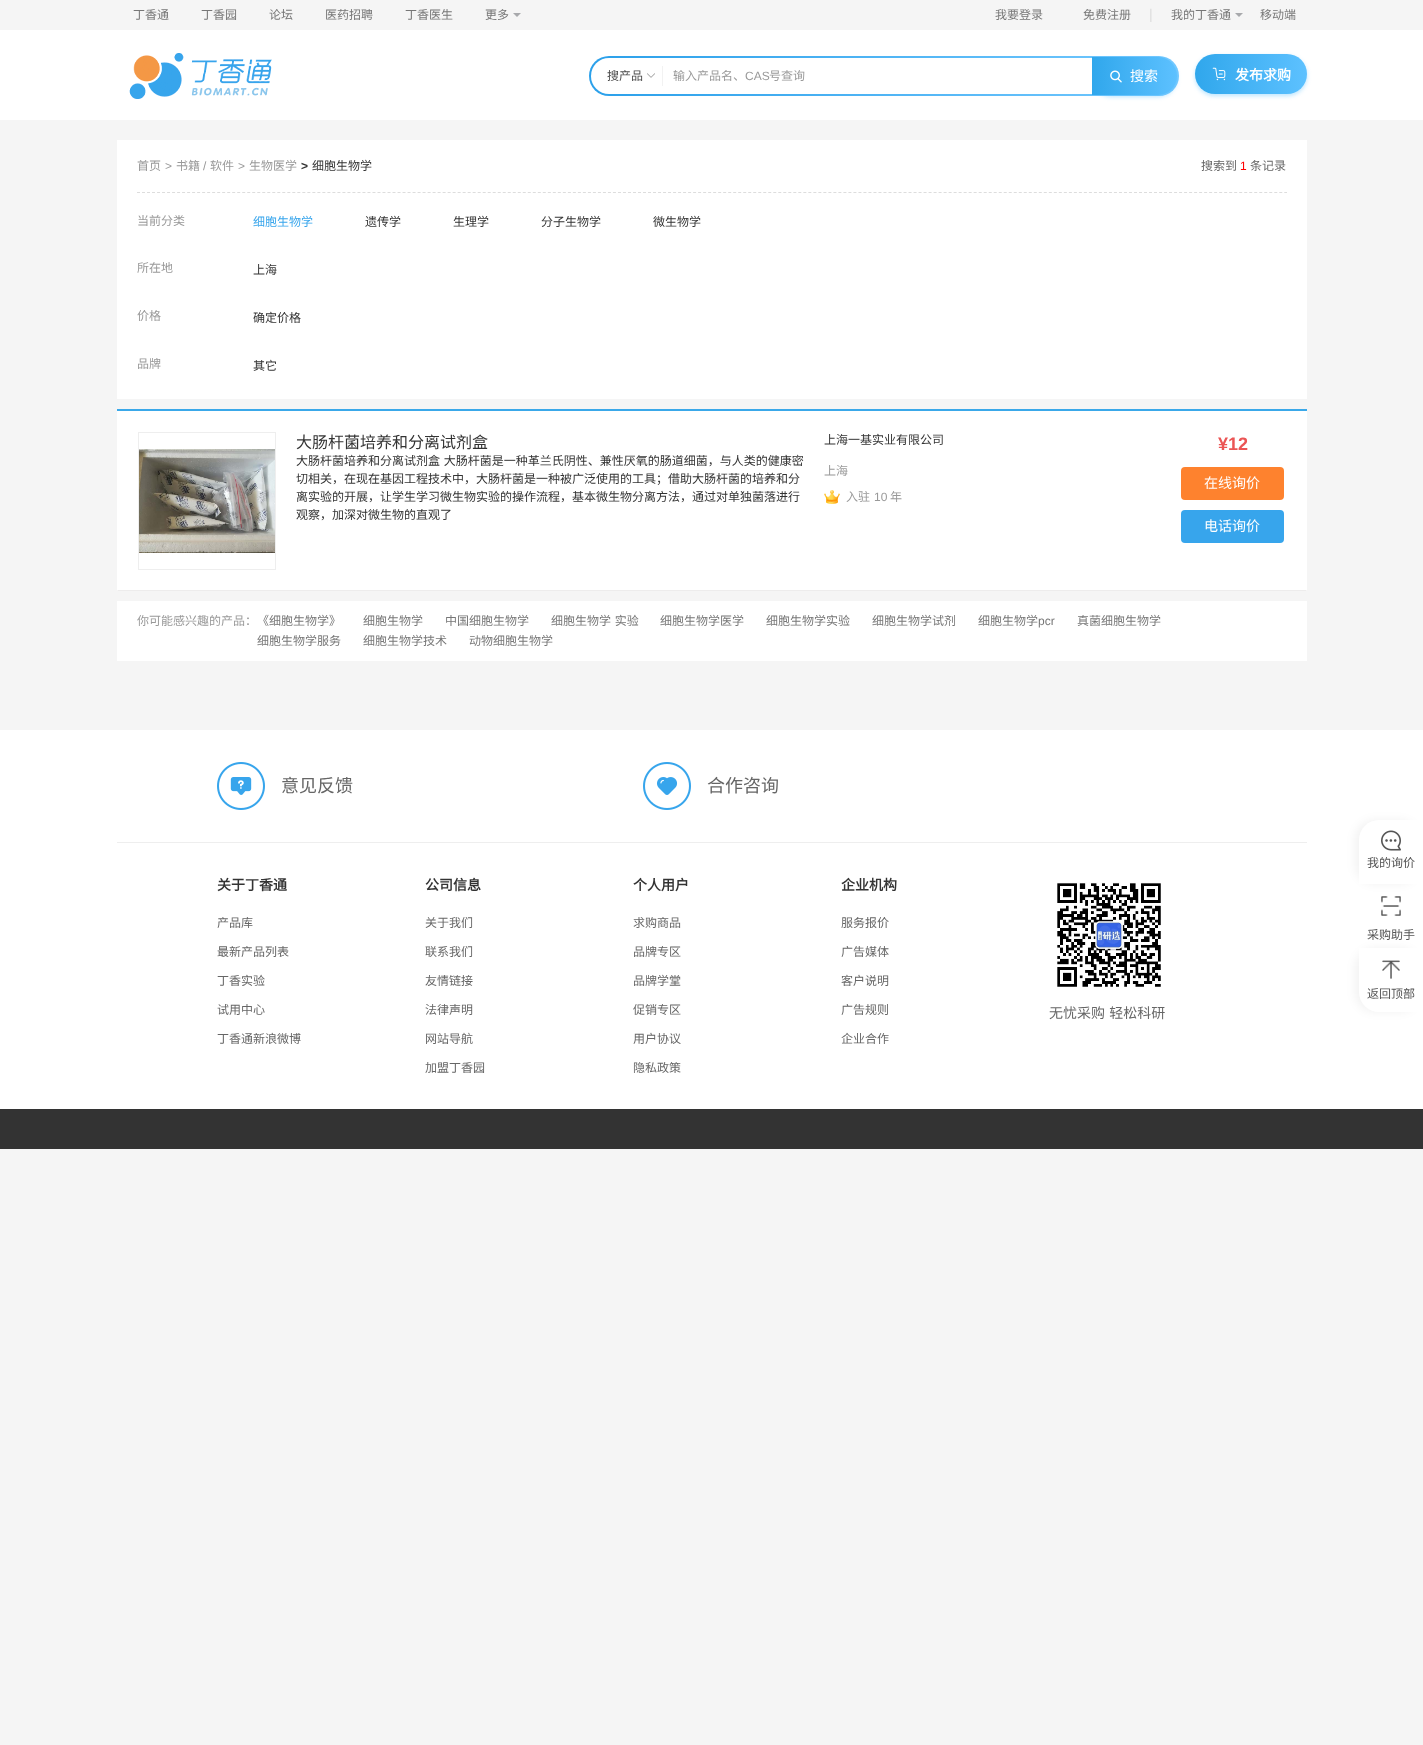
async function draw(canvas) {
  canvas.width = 1423;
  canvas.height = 1745;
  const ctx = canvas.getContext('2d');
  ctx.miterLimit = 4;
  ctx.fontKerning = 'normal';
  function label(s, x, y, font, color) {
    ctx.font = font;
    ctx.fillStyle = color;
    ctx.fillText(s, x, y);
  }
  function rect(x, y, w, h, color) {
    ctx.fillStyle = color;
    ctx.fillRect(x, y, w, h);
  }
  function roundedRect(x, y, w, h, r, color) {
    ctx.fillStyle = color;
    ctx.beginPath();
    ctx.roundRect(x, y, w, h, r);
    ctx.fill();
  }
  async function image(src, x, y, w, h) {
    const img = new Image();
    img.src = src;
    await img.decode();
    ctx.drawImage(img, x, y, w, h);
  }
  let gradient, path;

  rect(0, 0, 1423, 1745, '#f5f5f5');
  label('丁香通', 133, 19, '12px Noto Sans CJK SC', '#777');
  label('丁香园', 201, 19, '12px Noto Sans CJK SC', '#777');
  label('论坛', 269, 19, '12px Noto Sans CJK SC', '#777');
  label('医药招聘', 325, 19, '12px Noto Sans CJK SC', '#777');
  label('丁香医生', 405, 19, '12px Noto Sans CJK SC', '#777');
  label('更多', 485, 19, '12px Noto Sans CJK SC', '#777');
  ctx.fillStyle = '#a8a9ac';
  path = new Path2D('M513 13H521L517 17Z');
  ctx.fill(path);
  label('我要登录', 995, 19, '12px Noto Sans CJK SC', '#777');
  label('免费注册', 1083, 19, '12px Noto Sans CJK SC', '#777');
  label('|', 1149, 19, '14px Liberation Sans', '#ddd');
  label('我的丁香通', 1171, 19, '12px Noto Sans CJK SC', '#777');
  ctx.fillStyle = '#a8a9ac';
  path = new Path2D('M1235 13H1243L1239 17Z');
  ctx.fill(path);
  label('移动端', 1260, 19, '12px Noto Sans CJK SC', '#777');
  rect(0, 30, 1423, 90, '#fff');
  await image('assets/img1.png', 129, 53, 143, 46);
  gradient = ctx.createLinearGradient(589, 76, 1179, 76);
  gradient.addColorStop(0, '#2ba0ea');
  gradient.addColorStop(1, '#74c9ff');
  ctx.fillStyle = gradient;
  ctx.beginPath();
  ctx.roundRect(589, 56, 590, 40, 20);
  ctx.fill();
  ctx.fillStyle = '#fff';
  ctx.beginPath();
  ctx.roundRect(591, 58, 72, 36, [18, 0, 0, 18]);
  ctx.fill();
  label('搜产品', 607, 80, '12px Noto Sans CJK SC', '#4b4b4b');
  await image('assets/img2.png', 647, 73, 8, 5);
  rect(662, 66, 1, 20, '#f2f2f2');
  ctx.fillStyle = '#57bdfc66';
  ctx.filter = 'blur(2px)';
  ctx.beginPath();
  ctx.roundRect(1092, 59, 85, 38, 19);
  ctx.fill();
  ctx.filter = 'none';
  rect(663, 58, 429, 36, '#fff');
  label('输入产品名、', 673, 80, '12px Noto Sans CJK SC', '#999');
  label('CAS', 745, 80, '12px Liberation Sans', '#999');
  label('号查询', 769, 80, '12px Noto Sans CJK SC', '#999');
  gradient = ctx.createLinearGradient(1177, 76, 1092, 76);
  gradient.addColorStop(0, '#5dc1ff');
  gradient.addColorStop(1, '#30a7ec');
  ctx.fillStyle = gradient;
  ctx.beginPath();
  ctx.roundRect(1092, 57, 85, 38, [0, 19, 19, 0]);
  ctx.fill();
  await image('assets/img3.png', 1110, 70, 12, 13);
  label('搜索', 1130, 81, '14px Noto Sans CJK SC', '#fff');
  ctx.fillStyle = '#57bdfc66';
  ctx.filter = 'blur(2px)';
  ctx.beginPath();
  ctx.roundRect(1195, 56, 112, 40, 20);
  ctx.fill();
  ctx.filter = 'none';
  gradient = ctx.createLinearGradient(1307, 74, 1195, 74);
  gradient.addColorStop(0, '#5dc1ff');
  gradient.addColorStop(1, '#30a7ec');
  ctx.fillStyle = gradient;
  ctx.beginPath();
  ctx.roundRect(1195, 54, 112, 40, 20);
  ctx.fill();
  await image('assets/img4.png', 1212, 67, 14, 14);
  label('发布求购', 1235, 80, 'bold 14px Noto Sans CJK SC', '#fff');
  rect(117, 140, 1190, 259, '#fff');
  label('首页', 137, 170, '12px Noto Sans CJK SC', '#999');
  label('>', 165, 170, '12px Liberation Sans', '#999');
  label('书籍', 176, 170, '12px Noto Sans CJK SC', '#999');
  label('/', 203, 170, '12px Liberation Sans', '#999');
  label('软件', 210, 170, '12px Noto Sans CJK SC', '#999');
  label('>', 238, 170, '12px Liberation Sans', '#999');
  label('生物医学', 249, 170, '12px Noto Sans CJK SC', '#999');
  label('>', 301, 170, 'bold 12px Liberation Sans', '#333');
  label('细胞生物学', 312, 170, '12px Noto Sans CJK SC', '#333');
  label('搜索到', 1201, 170, '12px Noto Sans CJK SC', '#666');
  label('1', 1240, 170, '12px Liberation Sans', '#f00');
  label('条记录', 1250, 170, '12px Noto Sans CJK SC', '#666');
  path = new Path2D('M137 192.5H1287');
  ctx.strokeStyle = '#ddd';
  ctx.setLineDash([3, 2.01]);
  ctx.stroke(path);
  label('当前分类', 137, 225, '12px Noto Sans CJK SC', '#999');
  label('细胞生物学', 253, 226, '12px Noto Sans CJK SC', '#37a5ec');
  label('遗传学', 365, 226, '12px Noto Sans CJK SC', '#333');
  label('生理学', 453, 226, '12px Noto Sans CJK SC', '#333');
  label('分子生物学', 541, 226, '12px Noto Sans CJK SC', '#333');
  label('微生物学', 653, 226, '12px Noto Sans CJK SC', '#333');
  label('所在地', 137, 272, '12px Noto Sans CJK SC', '#999');
  label('上海', 253, 274, '12px Noto Sans CJK SC', '#333');
  label('价格', 137, 320, '12px Noto Sans CJK SC', '#999');
  label('确定价格', 253, 322, '12px Noto Sans CJK SC', '#333');
  label('品牌', 137, 368, '12px Noto Sans CJK SC', '#999');
  label('其它', 253, 370, '12px Noto Sans CJK SC', '#333');
  rect(117, 411, 1190, 180, '#fff');
  rect(117, 409, 1190, 2, '#3aa8e9');
  ctx.fillStyle = '#edecec';
  path = new Path2D('M1307 591H117L118 590H1306Z');
  ctx.fill(path);
  ctx.strokeStyle = '#eee';
  ctx.setLineDash([]);
  ctx.strokeRect(138.5, 432.5, 137, 137);
  await image('assets/img5.png', 139, 449, 136, 104);
  label('大肠杆菌培养和分离试剂盒', 296, 448, '16px Noto Sans CJK SC', '#333');
  ctx.wordSpacing = '1px';
  label('大肠杆菌培养和分离试剂盒 大肠杆菌是一种革兰氏阴性、兼性厌氧的肠道细菌，与人类的健康密', 296, 465, '12px Noto Sans CJK SC', '#333');
  ctx.wordSpacing = '0px';
  label('切相关，在现在基因工程技术中，大肠杆菌是一种被广泛使用的工具；借助大肠杆菌的培养和分', 296, 483, '12px Noto Sans CJK SC', '#333');
  label('离实验的开展，让学生学习微生物实验的操作流程，基本微生物分离方法，通过对单独菌落进行', 296, 501, '12px Noto Sans CJK SC', '#333');
  label('观察，加深对微生物的直观了', 296, 519, '12px Noto Sans CJK SC', '#333');
  label('上海一基实业有限公司', 824, 444, '12px Noto Sans CJK SC', '#333');
  label('上海', 824, 475, '12px Noto Sans CJK SC', '#999');
  await image('assets/img6.png', 824, 490, 16, 14);
  label('入驻', 846, 501, '12px Noto Sans CJK SC', '#999');
  label('10', 874, 501, '12px Liberation Sans', '#999');
  label('年', 890, 501, '12px Noto Sans CJK SC', '#999');
  label('¥12', 1218, 450, 'bold 18px Liberation Sans', '#eb5555');
  roundedRect(1181, 467, 103, 33, 4, '#fe822e');
  label('在线询价', 1204, 488, '14px Noto Sans CJK SC', '#fff');
  roundedRect(1181, 510, 103, 33, 4, '#37a5ec');
  label('电话询价', 1204, 531, '14px Noto Sans CJK SC', '#fff');
  rect(117, 601, 1190, 60, '#fff');
  label('你可能感兴趣的产品：', 137, 625, '12px Noto Sans CJK SC', '#999');
  label('《细胞生物学》', 257, 625, '12px Noto Sans CJK SC', '#777');
  label('细胞生物学', 363, 625, '12px Noto Sans CJK SC', '#777');
  label('中国细胞生物学', 445, 625, '12px Noto Sans CJK SC', '#777');
  ctx.wordSpacing = '1px';
  label('细胞生物学 实验', 551, 625, '12px Noto Sans CJK SC', '#777');
  ctx.wordSpacing = '0px';
  label('细胞生物学医学', 660, 625, '12px Noto Sans CJK SC', '#777');
  label('细胞生物学实验', 766, 625, '12px Noto Sans CJK SC', '#777');
  label('细胞生物学试剂', 872, 625, '12px Noto Sans CJK SC', '#777');
  label('细胞生物学', 978, 625, '12px Noto Sans CJK SC', '#777');
  label('pcr', 1038, 625, '12px Liberation Sans', '#777');
  label('真菌细胞生物学', 1077, 625, '12px Noto Sans CJK SC', '#777');
  label('细胞生物学服务', 257, 645, '12px Noto Sans CJK SC', '#777');
  label('细胞生物学技术', 363, 645, '12px Noto Sans CJK SC', '#777');
  label('动物细胞生物学', 469, 645, '12px Noto Sans CJK SC', '#777');
  rect(0, 730, 1423, 379, '#fff');
  await image('assets/img8.png', 1381, 896, 20, 20);
  ctx.fillStyle = '#0000000d';
  ctx.filter = 'blur(5px)';
  ctx.beginPath();
  ctx.roundRect(1355, 820, 64, 64, 20);
  ctx.fill();
  ctx.filter = 'none';
  ctx.fillStyle = '#fff';
  ctx.beginPath();
  ctx.roundRect(1359, 820, 64, 64, [20, 0, 0, 0]);
  ctx.fill();
  await image('assets/img7.png', 1381, 830, 20, 21);
  label('我的询价', 1367, 867, '12px Noto Sans CJK SC', '#555');
  label('采购助手', 1367, 939, '12px Noto Sans CJK SC', '#555');
  ctx.fillStyle = '#0000000d';
  ctx.filter = 'blur(5px)';
  ctx.beginPath();
  ctx.roundRect(1355, 948, 64, 64, 20);
  ctx.fill();
  ctx.filter = 'none';
  ctx.fillStyle = '#fff';
  ctx.beginPath();
  ctx.roundRect(1359, 948, 64, 64, [0, 0, 0, 20]);
  ctx.fill();
  await image('assets/img9.png', 1382, 960, 18, 19);
  label('返回顶部', 1367, 998, '12px Noto Sans CJK SC', '#555');
  rect(117, 842, 1190, 1, '#eee');
  await image('assets/img10.png', 217, 762, 48, 48);
  label('意见反馈', 281, 792, '18px Noto Sans CJK SC', '#666');
  await image('assets/img11.png', 643, 762, 48, 48);
  label('合作咨询', 707, 792, '18px Noto Sans CJK SC', '#666');
  label('关于丁香通', 217, 890, 'bold 14px Noto Sans CJK SC', '#333');
  label('产品库', 217, 927, '12px Noto Sans CJK SC', '#666');
  label('最新产品列表', 217, 956, '12px Noto Sans CJK SC', '#666');
  label('丁香实验', 217, 985, '12px Noto Sans CJK SC', '#666');
  label('试用中心', 217, 1014, '12px Noto Sans CJK SC', '#666');
  label('丁香通新浪微博', 217, 1043, '12px Noto Sans CJK SC', '#666');
  label('公司信息', 425, 890, 'bold 14px Noto Sans CJK SC', '#333');
  label('关于我们', 425, 927, '12px Noto Sans CJK SC', '#666');
  label('联系我们', 425, 956, '12px Noto Sans CJK SC', '#666');
  label('友情链接', 425, 985, '12px Noto Sans CJK SC', '#666');
  label('法律声明', 425, 1014, '12px Noto Sans CJK SC', '#666');
  label('网站导航', 425, 1043, '12px Noto Sans CJK SC', '#666');
  label('加盟丁香园', 425, 1072, '12px Noto Sans CJK SC', '#666');
  label('个人用户', 633, 890, 'bold 14px Noto Sans CJK SC', '#333');
  label('求购商品', 633, 927, '12px Noto Sans CJK SC', '#666');
  label('品牌专区', 633, 956, '12px Noto Sans CJK SC', '#666');
  label('品牌学堂', 633, 985, '12px Noto Sans CJK SC', '#666');
  label('促销专区', 633, 1014, '12px Noto Sans CJK SC', '#666');
  label('用户协议', 633, 1043, '12px Noto Sans CJK SC', '#666');
  label('隐私政策', 633, 1072, '12px Noto Sans CJK SC', '#666');
  label('企业机构', 841, 890, 'bold 14px Noto Sans CJK SC', '#333');
  label('服务报价', 841, 927, '12px Noto Sans CJK SC', '#666');
  label('广告媒体', 841, 956, '12px Noto Sans CJK SC', '#666');
  label('客户说明', 841, 985, '12px Noto Sans CJK SC', '#666');
  label('广告规则', 841, 1014, '12px Noto Sans CJK SC', '#666');
  label('企业合作', 841, 1043, '12px Noto Sans CJK SC', '#666');
  await image('assets/img12.png', 1057, 882, 104, 105);
  ctx.wordSpacing = '1px';
  label('无忧采购 轻松科研', 1049, 1018, '14px Noto Sans CJK SC', '#666');
  rect(0, 1109, 1423, 40, '#333');
}

draw(document.querySelector('canvas'));
